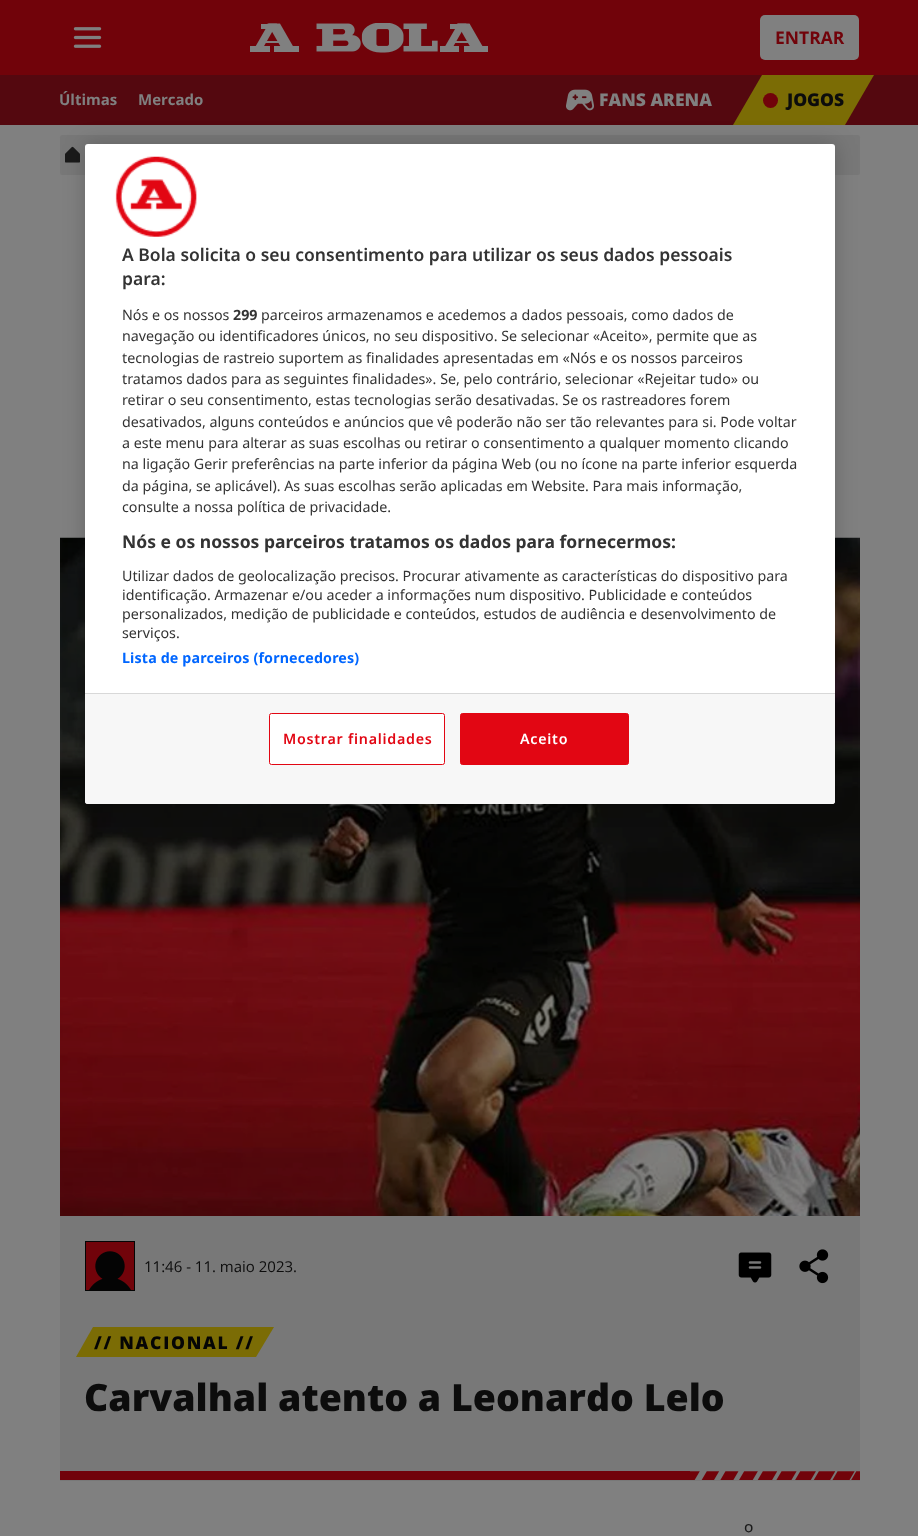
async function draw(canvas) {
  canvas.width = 918;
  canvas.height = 1536;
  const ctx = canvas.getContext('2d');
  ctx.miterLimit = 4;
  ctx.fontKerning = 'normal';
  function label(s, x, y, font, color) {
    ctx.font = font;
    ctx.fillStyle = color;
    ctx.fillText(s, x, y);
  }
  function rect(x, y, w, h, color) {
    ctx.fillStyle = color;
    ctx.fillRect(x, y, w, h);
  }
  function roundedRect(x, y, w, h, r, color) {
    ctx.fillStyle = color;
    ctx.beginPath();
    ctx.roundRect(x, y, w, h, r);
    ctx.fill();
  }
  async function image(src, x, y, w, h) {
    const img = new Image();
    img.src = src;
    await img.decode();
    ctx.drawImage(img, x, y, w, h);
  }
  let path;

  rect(0, 0, 918, 1536, '#808080');
  rect(0, 0, 918, 75, '#71030a');
  await image('assets/img1.png', 73, 27, 29, 21);
  await image('assets/img2.png', 250, 23, 238, 30);
  roundedRect(760, 15, 99, 45, 5, '#808080');
  label('ENTRAR', 775, 44, 'bold 17.5px Open Sans', '#71030a');
  rect(0, 75, 918, 50, '#54080f');
  label('Últimas', 59, 105, 'bold 15px Open Sans', '#808080');
  label('Mercado', 138, 105, 'bold 15px Open Sans', '#808080');
  await image('assets/img3.png', 566, 89, 28, 22);
  label('FANS ARENA', 599, 106, '800 17.5px Open Sans', '#808080');
  ctx.fillStyle = '#7b6c05';
  path = new Path2D('M762 75H874L845 125H733Z');
  ctx.fill(path);
  ctx.fillStyle = '#71030a';
  ctx.beginPath();
  ctx.arc(770.5, 100.5, 7.5, 0, 2 * Math.PI);
  ctx.fill();
  label('JOGOS', 787, 106, '800 17.5px Open Sans', '#0c0c0c');
  roundedRect(60, 135, 800, 40, 2.5, '#787878');
  await image('assets/img4.png', 65, 146, 15, 17);
  await image('assets/img5.png', 60, 537, 800, 679);
  rect(60, 1216, 800, 265, '#787878');
  await image('assets/img6.png', 60, 1471, 800, 9);
  await image('assets/img7.png', 85, 1241, 50, 50);
  label('11:46 - 11. maio 2023.', 144, 1272, '15px Open Sans', '#0c0c0c');
  await image('assets/img8.png', 738, 1252, 34, 31);
  await image('assets/img9.png', 799, 1249, 30, 35);
  ctx.fillStyle = '#7b6c05';
  path = new Path2D('M93 1327H274L256 1357H76Z');
  ctx.fill(path);
  ctx.letterSpacing = '1.75px';
  label('// NACIONAL //', 94, 1349, '800 17.5px Open Sans', '#050505');
  ctx.letterSpacing = '0px';
  label('Carvalhal atento a Leonardo Lelo', 84, 1411, '800 37.5px Open Sans', '#0c0c0c');
  label('º', 744, 1542, '25px Open Sans', '#1a1a1a');
  ctx.fillStyle = '#00000033';
  ctx.filter = 'blur(11px)';
  ctx.beginPath();
  ctx.roundRect(85, 144, 750, 660, 3);
  ctx.fill();
  ctx.filter = 'none';
  roundedRect(85, 144, 750, 660, 3, '#fff');
  await image('assets/img10.png', 115, 156, 82, 81);
  label('A Bola solicita o seu consentimento para utilizar os seus dados pessoais', 122, 261, '600 17.5px Noto Sans', '#333');
  label('para:', 122, 285, '600 17.5px Noto Sans', '#333');
  label('Nós e os nossos', 122, 320, '14.25px Noto Sans', '#333');
  label('299', 233, 320, 'bold 14.25px Noto Sans', '#333');
  label('parceiros armazenamos e acedemos a dados pessoais, como dados de', 261, 320, '14.25px Noto Sans', '#333');
  label('navegação ou identificadores únicos, no seu dispositivo. Se selecionar «Aceito», permite que as', 122, 341, '14.25px Noto Sans', '#333');
  label('tecnologias de rastreio suportem as finalidades apresentadas em «Nós e os nossos parceiros', 122, 363, '14.25px Noto Sans', '#333');
  label('tratamos dados para as seguintes finalidades». Se, pelo contrário, selecionar «Rejeitar tudo» ou', 122, 384, '14.25px Noto Sans', '#333');
  label('retirar o seu consentimento, estas tecnologias serão desativadas. Se os rastreadores forem', 122, 405, '14.25px Noto Sans', '#333');
  label('desativados, alguns conteúdos e anúncios que vê poderão não ser tão relevantes para si. Pode voltar', 122, 427, '14.25px Noto Sans', '#333');
  label('a este menu para alterar as suas escolhas ou retirar o consentimento a qualquer momento clicando', 122, 448, '14.25px Noto Sans', '#333');
  label('na ligação Gerir preferências na parte inferior da página Web (ou no ícone na parte inferior esquerda', 122, 469, '14.25px Noto Sans', '#333');
  label('da página, se aplicável). As suas escolhas serão aplicadas em Website. Para mais informação,', 122, 491, '14.25px Noto Sans', '#333');
  label('consulte a nossa política de privacidade.', 122, 512, '14.25px Noto Sans', '#333');
  label('Nós e os nossos parceiros tratamos os dados para fornecermos:', 122, 548, 'bold 17.5px Noto Sans', '#333');
  label('Utilizar dados de geolocalização precisos. Procurar ativamente as características do dispositivo para', 122, 581, '14.25px Noto Sans', '#333');
  label('identificação. Armazenar e/ou aceder a informações num dispositivo. Publicidade e conteúdos', 122, 600, '14.25px Noto Sans', '#333');
  label('personalizados, medição de publicidade e conteúdos, estudos de audiência e desenvolvimento de', 122, 619, '14.25px Noto Sans', '#333');
  label('serviços.', 122, 638, '14.25px Noto Sans', '#333');
  ctx.letterSpacing = '0.15px';
  label('Lista de parceiros (fornecedores)', 122, 663, 'bold 14.25px Noto Sans', '#06f');
  ctx.fillStyle = '#f7f7f7';
  ctx.beginPath();
  ctx.roundRect(85, 693, 750, 111, [0, 0, 3, 3]);
  ctx.fill();
  rect(85, 693, 750, 1, '#d8d8d8');
  ctx.fillStyle = '#fff';
  ctx.beginPath();
  ctx.roundRect(269.5, 713.5, 175, 51, 2);
  ctx.fill();
  ctx.strokeStyle = '#e20613';
  ctx.stroke();
  ctx.letterSpacing = '0.75px';
  label('Mostrar finalidades', 283, 744, '600 14.25px Noto Sans', '#e20613');
  ctx.beginPath();
  ctx.roundRect(460.5, 713.5, 168, 51, 2);
  ctx.fill();
  ctx.stroke();
  label('Aceito', 520, 744, '600 14.25px Noto Sans', '#fff');
}

draw(document.querySelector('canvas'));
